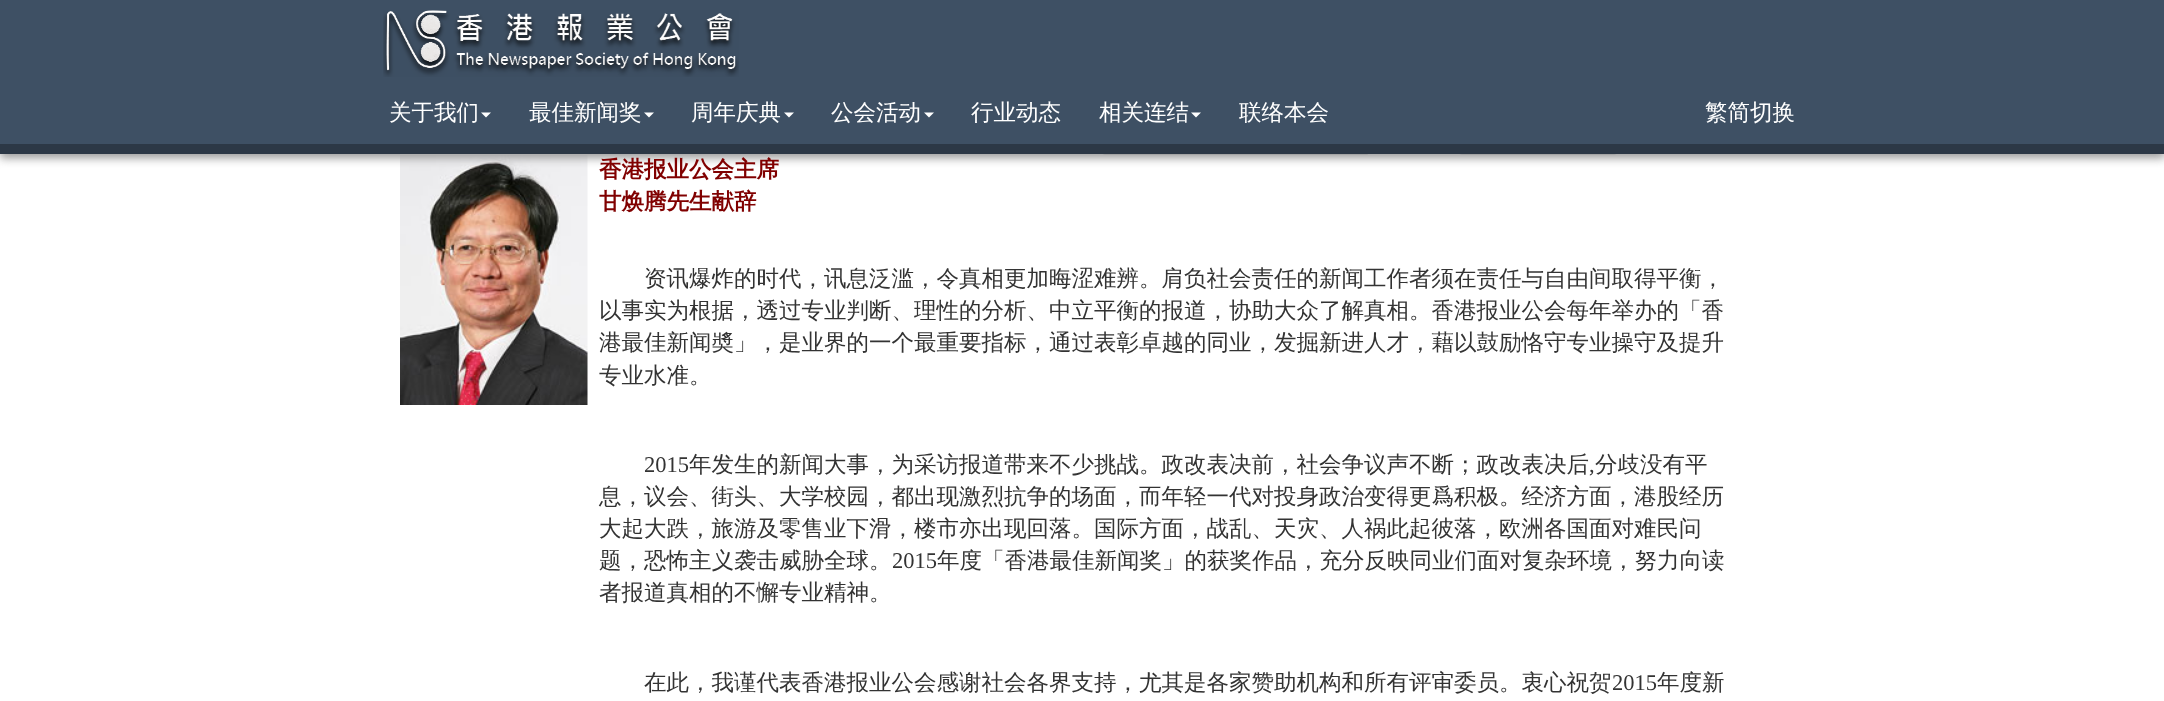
async function draw(canvas) {
  canvas.width = 2164;
  canvas.height = 701;
  const ctx = canvas.getContext('2d');
  ctx.miterLimit = 4;
  ctx.fontKerning = 'normal';
  function label(s, x, y, font, color) {
    ctx.font = font;
    ctx.fillStyle = color;
    ctx.fillText(s, x, y);
  }
  function rect(x, y, w, h, color) {
    ctx.fillStyle = color;
    ctx.fillRect(x, y, w, h);
  }
  async function image(src, x, y, w, h) {
    const img = new Image();
    img.src = src;
    await img.decode();
    ctx.drawImage(img, x, y, w, h);
  }
  let path;

  rect(0, 0, 2164, 701, '#fff');
  ctx.beginPath();
  ctx.roundRect(1101.5, 118.5, 266, 36, [3.5, 0, 0, 3.5]);
  ctx.strokeStyle = '#ccc';
  ctx.stroke();
  ctx.beginPath();
  ctx.roundRect(1458.5, 118.5, 159, 36, 3.5);
  ctx.stroke();
  await image('assets/img2.png', 400, 155, 188, 250);
  ctx.fillStyle = '#999';
  ctx.filter = 'blur(5px)';
  ctx.beginPath();
  ctx.rect(0, 4, 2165, 154);
  ctx.fill();
  ctx.filter = 'none';
  rect(0, 0, 2164, 144, '#3e5064');
  rect(0, 144, 2164, 10, '#2c3846');
  await image('assets/img1.png', 383, 10, 356, 67);
  label('关于我们', 389, 120, '500 22.5px WenQuanYi Zen Hei', '#fff');
  path = new Path2D('M481 112.5H491L486 117.5Z');
  ctx.fill(path);
  label('最佳新闻奖', 529, 120, '500 22.5px WenQuanYi Zen Hei', '#fff');
  path = new Path2D('M644 112.5H654L649 117.5Z');
  ctx.fill(path);
  label('周年庆典', 691, 120, '500 22.5px WenQuanYi Zen Hei', '#fff');
  path = new Path2D('M784 112.5H794L789 117.5Z');
  ctx.fill(path);
  label('公会活动', 831, 120, '500 22.5px WenQuanYi Zen Hei', '#fff');
  path = new Path2D('M924 112.5H934L929 117.5Z');
  ctx.fill(path);
  label('行业动态', 971, 120, '500 22.5px WenQuanYi Zen Hei', '#fff');
  label('相关连结', 1099, 120, '500 22.5px WenQuanYi Zen Hei', '#fff');
  path = new Path2D('M1191 112.5H1201L1196 117.5Z');
  ctx.fill(path);
  label('联络本会', 1239, 120, '500 22.5px WenQuanYi Zen Hei', '#fff');
  label('繁简切换', 1705, 120, '500 22.5px WenQuanYi Zen Hei', '#fff');
  label('香港报业公会主席', 599, 177, 'bold 22.5px WenQuanYi Zen Hei', '#800000');
  label('甘焕腾先生献辞', 599, 209, 'bold 22.5px WenQuanYi Zen Hei', '#800000');
  label('资讯爆炸的时代，讯息泛滥，令真相更加晦涩难辨。肩负社会责任的新闻工作者须在责任与自由间取得平衡，', 644, 286, '500 22.5px WenQuanYi Zen Hei', '#333');
  label('以事实为根据，透过专业判断、理性的分析、中立平衡的报道，协助大众了解真相。香港报业公会每年举办的「香', 599, 318, '500 22.5px WenQuanYi Zen Hei', '#333');
  label('港最佳新闻奬」，是业界的一个最重要指标，通过表彰卓越的同业，发掘新进人才，藉以鼓励恪守专业操守及提升', 599, 350, '500 22.5px WenQuanYi Zen Hei', '#333');
  label('专业水准。', 599, 383, '500 22.5px WenQuanYi Zen Hei', '#333');
  label('2015', 644, 472, '22.5px Liberation Serif', '#333');
  label('年发生的新闻大事，为采访报道带来不少挑战。政改表决前，社会争议声不断；政改表决后', 689, 472, '500 22.5px WenQuanYi Zen Hei', '#333');
  label(',', 1589, 472, '22.5px Liberation Serif', '#333');
  label('分歧没有平', 1595, 472, '500 22.5px WenQuanYi Zen Hei', '#333');
  label('息，议会、街头、大学校园，都出现激烈抗争的场面，而年轻一代对投身政治变得更爲积极。经济方面，港股经历', 599, 504, '500 22.5px WenQuanYi Zen Hei', '#333');
  label('大起大跌，旅游及零售业下滑，楼市亦出现回落。国际方面，战乱、天灾、人祸此起彼落，欧洲各国面对难民问', 599, 536, '500 22.5px WenQuanYi Zen Hei', '#333');
  label('题，恐怖主义袭击威胁全球。', 599, 568, '500 22.5px WenQuanYi Zen Hei', '#333');
  label('2015', 892, 568, '22.5px Liberation Serif', '#333');
  label('年度「香港最佳新闻奖」的获奖作品，充分反映同业们面对复杂环境，努力向读', 937, 568, '500 22.5px WenQuanYi Zen Hei', '#333');
  label('者报道真相的不懈专业精神。', 599, 600, '500 22.5px WenQuanYi Zen Hei', '#333');
  label('在此，我谨代表香港报业公会感谢社会各界支持，尤其是各家赞助机构和所有评审委员。衷心祝贺', 644, 690, '500 22.5px WenQuanYi Zen Hei', '#333');
  label('2015', 1612, 690, '22.5px Liberation Serif', '#333');
  label('年度新', 1657, 690, '500 22.5px WenQuanYi Zen Hei', '#333');
}

draw(document.querySelector('canvas'));
